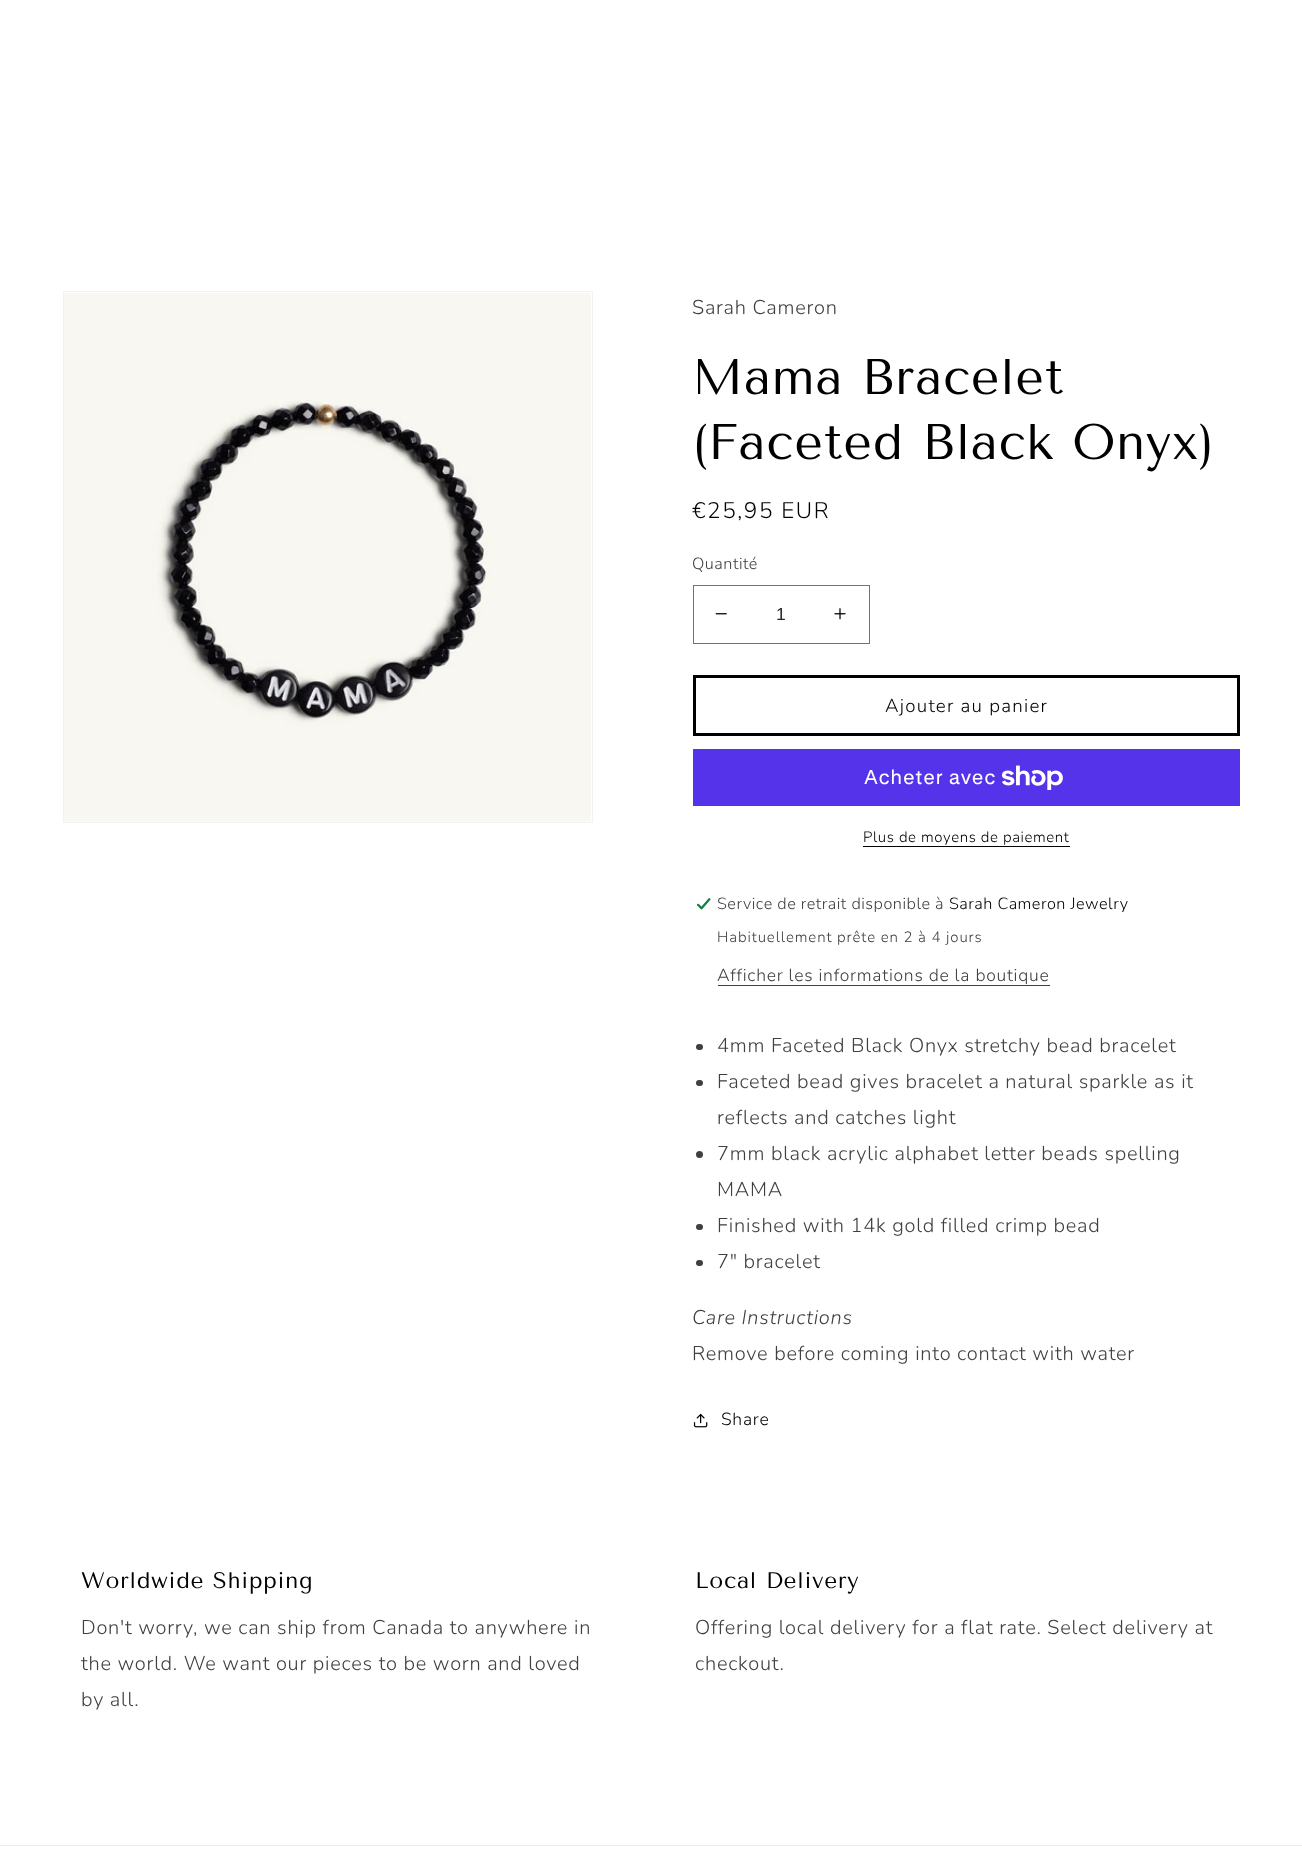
async function draw(canvas) {
  canvas.width = 1302;
  canvas.height = 1853;
  const ctx = canvas.getContext('2d');
  ctx.miterLimit = 4;
  ctx.fontKerning = 'normal';
  function label(s, x, y, font, color) {
    ctx.font = font;
    ctx.fillStyle = color;
    ctx.fillText(s, x, y);
  }
  function rect(x, y, w, h, color) {
    ctx.fillStyle = color;
    ctx.fillRect(x, y, w, h);
  }
  function roundedRect(x, y, w, h, r, color) {
    ctx.fillStyle = color;
    ctx.beginPath();
    ctx.roundRect(x, y, w, h, r);
    ctx.fill();
  }
  async function image(src, x, y, w, h) {
    const img = new Image();
    img.src = src;
    await img.decode();
    ctx.drawImage(img, x, y, w, h);
  }

  rect(0, 0, 1302, 1853, '#fff');
  ctx.strokeStyle = '#f2f2f2';
  ctx.strokeRect(63.5, 291.5, 529, 531);
  await image('assets/img1.png', 64, 293, 527, 529);
  ctx.letterSpacing = '0.75px';
  label('Sarah Cameron', 692, 314, '300 20px Nunito', '#404040');
  label('Mama Bracelet', 692, 394, '50px Tenor Sans', '#000');
  label('(Faceted Black Onyx)', 692, 459, '50px Tenor Sans', '#000');
  ctx.letterSpacing = '1.6px';
  label('€25,95 EUR', 692, 518, '300 22.5px Nunito', '#000');
  ctx.letterSpacing = '0.5px';
  label('Quantité', 692, 569, '300 16.25px Nunito', '#404040');
  await image('assets/img2.png', 715, 613, 12, 2);
  await image('assets/img3.png', 834, 608, 12, 12);
  ctx.strokeStyle = '#737373';
  ctx.strokeRect(693.5, 585.5, 176, 58);
  ctx.letterSpacing = '0px';
  label('1', 776, 620, '17.5px Liberation Sans', '#262626');
  ctx.strokeStyle = '#000';
  ctx.lineWidth = 3;
  ctx.strokeRect(694.5, 676.5, 544, 58);
  ctx.letterSpacing = '1.25px';
  label('Ajouter au panier', 885, 712, '300 18.75px Nunito', '#000');
  rect(693, 749, 547, 57, '#5433eb');
  ctx.letterSpacing = '0.75px';
  label('Acheter avec', 864, 784, '20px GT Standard', '#fff');
  await image('assets/img4.png', 1001, 765, 62, 25);
  ctx.letterSpacing = '0.6px';
  label('Plus de moyens de paiement', 863, 842, '300 15px Nunito', '#000');
  rect(863, 846, 207, 1, '#000');
  await image('assets/img5.png', 696, 897, 15, 13);
  ctx.letterSpacing = '0.5px';
  label('Service de retrait disponible à', 717, 909, '300 16.25px Nunito', '#404040');
  label('Sarah Cameron Jewelry', 949, 909, '300 16.25px Nunito', '#000');
  ctx.letterSpacing = '0.9px';
  label('Habituellement prête en 2 à 4 jours', 717, 942, '300 15px Nunito', '#404040');
  ctx.letterSpacing = '0.75px';
  label('Afficher les informations de la boutique', 717, 981, '300 17.5px Nunito', '#404040');
  rect(718, 985, 332, 1, '#404040');
  roundedRect(696, 1044, 7, 6, 3, '#404040');
  label('4mm Faceted Black Onyx stretchy bead bracelet', 717, 1052, '300 20px Nunito', '#404040');
  roundedRect(696, 1080, 7, 6, 3, '#404040');
  label('Faceted bead gives bracelet a natural sparkle as it', 717, 1088, '300 20px Nunito', '#404040');
  label('reflects and catches light', 717, 1124, '300 20px Nunito', '#404040');
  ctx.beginPath();
  ctx.arc(699.5, 1154.5, 3.5, 0, 2 * Math.PI);
  ctx.fill();
  label('7mm black acrylic alphabet letter beads spelling', 717, 1160, '300 20px Nunito', '#404040');
  label('MAMA', 717, 1196, '300 20px Nunito', '#404040');
  roundedRect(696, 1224, 7, 6, 3, '#404040');
  label('Finished with 14k gold filled crimp bead', 717, 1232, '300 20px Nunito', '#404040');
  roundedRect(696, 1260, 7, 6, 3, '#404040');
  label('7" bracelet', 717, 1268, '300 20px Nunito', '#404040');
  label('Care Instructions', 692, 1324, 'italic 300 20px Nunito', '#404040');
  label('Remove before coming into contact with water', 692, 1360, '300 20px Nunito', '#404040');
  await image('assets/img6.png', 693, 1413, 15, 15);
  label('Share', 721, 1425, '300 17.5px Nunito', '#000');
  label('Worldwide Shipping', 81, 1588, '22.5px Tenor Sans', '#000');
  label('Don\'t worry, we can ship from Canada to anywhere in', 81, 1634, '300 20px Nunito', '#404040');
  label('the world. We want our pieces to be worn and loved', 81, 1670, '300 20px Nunito', '#404040');
  label('by all.', 81, 1706, '300 20px Nunito', '#404040');
  label('Local Delivery', 695, 1588, '22.5px Tenor Sans', '#000');
  label('Offering local delivery for a flat rate. Select delivery at', 695, 1634, '300 20px Nunito', '#404040');
  label('checkout.', 695, 1670, '300 20px Nunito', '#404040');
  rect(0, 1845, 1302, 1, '#ebebeb');
}

draw(document.querySelector('canvas'));
